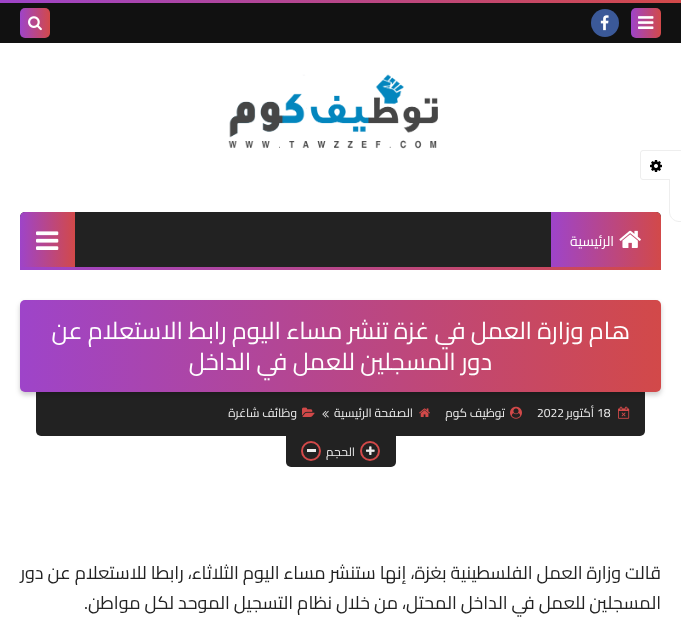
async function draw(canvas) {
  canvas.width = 681;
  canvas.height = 623;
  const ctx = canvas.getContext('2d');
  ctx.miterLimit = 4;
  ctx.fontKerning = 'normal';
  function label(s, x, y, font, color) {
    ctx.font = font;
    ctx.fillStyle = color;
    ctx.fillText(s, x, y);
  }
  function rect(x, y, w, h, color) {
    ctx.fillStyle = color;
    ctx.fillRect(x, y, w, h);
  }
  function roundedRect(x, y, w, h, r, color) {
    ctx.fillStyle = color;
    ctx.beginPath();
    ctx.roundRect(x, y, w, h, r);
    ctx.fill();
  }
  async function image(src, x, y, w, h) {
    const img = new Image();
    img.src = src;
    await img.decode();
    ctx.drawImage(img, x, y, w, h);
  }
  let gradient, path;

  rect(0, 0, 681, 623, '#fff');
  path = new Path2D('M669.5 150.5H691.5V221.5H679C674 221.5 669.5 217 669.5 212Z');
  ctx.strokeStyle = '#eee';
  ctx.stroke(path);
  ctx.beginPath();
  ctx.roundRect(640, 150, 30, 30, [3, 0, 0, 3]);
  ctx.fill();
  ctx.fillStyle = '#eee';
  path = new Path2D('M643 150H670V180H643C641.5 180 640 178.5 640 177V153C640 151.5 641.5 150 643 150ZM643 151H670V179H643C642 179 641 178 641 177V153C641 152 642 151 643 151Z');
  ctx.fill(path, 'evenodd');
  await image('assets/img1.png', 650, 160, 12, 12);
  gradient = ctx.createLinearGradient(681, 1.5, 0, 1.5);
  gradient.addColorStop(0, '#d24949');
  gradient.addColorStop(1, '#9e44c9');
  ctx.fillStyle = gradient;
  ctx.fillRect(0, 0, 681, 3);
  rect(0, 3, 681, 40, '#111');
  gradient = ctx.createLinearGradient(661, 23, 631, 23);
  gradient.addColorStop(0, '#d24949');
  gradient.addColorStop(1, '#9e44c9');
  ctx.fillStyle = gradient;
  ctx.beginPath();
  ctx.roundRect(631, 8, 30, 30, 5);
  ctx.fill();
  await image('assets/img2.png', 638, 16, 16, 13);
  ctx.fillStyle = '#3b5998';
  ctx.beginPath();
  ctx.arc(605, 23, 14, 0, 2 * Math.PI);
  ctx.fill();
  await image('assets/img3.png', 600, 15, 9, 16);
  gradient = ctx.createLinearGradient(50, 23, 20, 23);
  gradient.addColorStop(0, '#d24949');
  gradient.addColorStop(1, '#9e44c9');
  ctx.fillStyle = gradient;
  ctx.beginPath();
  ctx.roundRect(20, 8, 30, 30, 5);
  ctx.fill();
  await image('assets/img4.png', 28, 16, 14, 15);
  await image('assets/img5.png', 228, 74, 210, 75);
  roundedRect(20, 212, 641, 58, 5, '#222');
  gradient = ctx.createLinearGradient(661, 240, 551, 240);
  gradient.addColorStop(0, '#d24949');
  gradient.addColorStop(1, '#9e44c9');
  ctx.fillStyle = gradient;
  ctx.beginPath();
  ctx.roundRect(551, 212, 110, 55, [0, 5, 0, 0]);
  ctx.fill();
  await image('assets/img6.png', 619, 230, 22, 18);
  ctx.direction = 'rtl';
  label('الرئيسية', 614, 246, '14px Cairo', '#fff');
  gradient = ctx.createLinearGradient(75, 240, 20, 240);
  gradient.addColorStop(0, '#d24949');
  gradient.addColorStop(1, '#9e44c9');
  ctx.fillStyle = gradient;
  ctx.beginPath();
  ctx.roundRect(20, 212, 55, 55, [5, 0, 0, 0]);
  ctx.fill();
  await image('assets/img7.png', 36, 231, 23, 19);
  gradient = ctx.createLinearGradient(661, 269, 20, 269);
  gradient.addColorStop(0, '#d24949');
  gradient.addColorStop(1, '#9e44c9');
  ctx.fillStyle = gradient;
  ctx.fillRect(20, 267, 641, 3);
  ctx.fillStyle = '#222';
  ctx.beginPath();
  ctx.roundRect(36, 389, 609, 47, [0, 0, 5, 5]);
  ctx.fill();
  ctx.fillStyle = '#00000033';
  ctx.filter = 'blur(2.5px)';
  ctx.beginPath();
  ctx.roundRect(20, 303, 641, 92, 5);
  ctx.fill();
  ctx.filter = 'none';
  gradient = ctx.createLinearGradient(661, 346, 20, 346);
  gradient.addColorStop(0, '#d24949');
  gradient.addColorStop(1, '#9e44c9');
  ctx.fillStyle = gradient;
  ctx.beginPath();
  ctx.roundRect(20, 300, 641, 92, 5);
  ctx.fill();
  label('هام وزارة العمل في غزة تنشر مساء اليوم رابط الاستعلام عن', 630, 339, '24px Cairo', '#fff');
  label('دور المسجلين للعمل في الداخل', 492, 370, '24px Cairo', '#fff');
  await image('assets/img8.png', 618, 406, 12, 13);
  ctx.direction = 'ltr';
  label('18', 597, 417, '12px Cairo', '#eee');
  ctx.direction = 'rtl';
  label('أكتوبر', 594, 417, '12px Cairo', '#eee');
  ctx.direction = 'ltr';
  label('2022', 537, 417, '12px Cairo', '#eee');
  await image('assets/img9.png', 510, 406, 12, 13);
  ctx.direction = 'rtl';
  label('توظيف كوم', 505, 417, '12px Cairo', '#eee');
  await image('assets/img10.png', 419, 408, 11, 9);
  label('الصفحة الرئيسية', 413, 417, '12px Cairo', '#eee');
  await image('assets/img11.png', 322, 410, 7, 8);
  await image('assets/img12.png', 302, 407, 13, 10);
  label('وظائف شاغرة', 297, 417, '12px Cairo', '#eee');
  ctx.fillStyle = '#222';
  ctx.beginPath();
  ctx.roundRect(286, 436, 110, 31, [0, 0, 5, 5]);
  ctx.fill();
  ctx.beginPath();
  ctx.arc(370, 451, 9, 0, 2 * Math.PI);
  ctx.strokeStyle = '#d24949';
  ctx.lineWidth = 2;
  ctx.stroke();
  await image('assets/img13.png', 366, 446, 9, 9);
  label('الحجم', 355, 456, '12px Cairo', '#eee');
  ctx.beginPath();
  ctx.arc(311, 451, 9, 0, 2 * Math.PI);
  ctx.stroke();
  rect(307, 449, 9, 3, '#eee');
  label('قالت وزارة العمل الفلسطينية بغزة، إنها ستنشر مساء اليوم الثلاثاء، رابطا للاستعلام عن دور', 661, 579, '18px Cairo', '#222');
  label('المسجلين للعمل في الداخل المحتل، من خلال نظام التسجيل الموحد لكل مواطن.', 661, 609, '18px Cairo', '#222');
}

draw(document.querySelector('canvas'));
